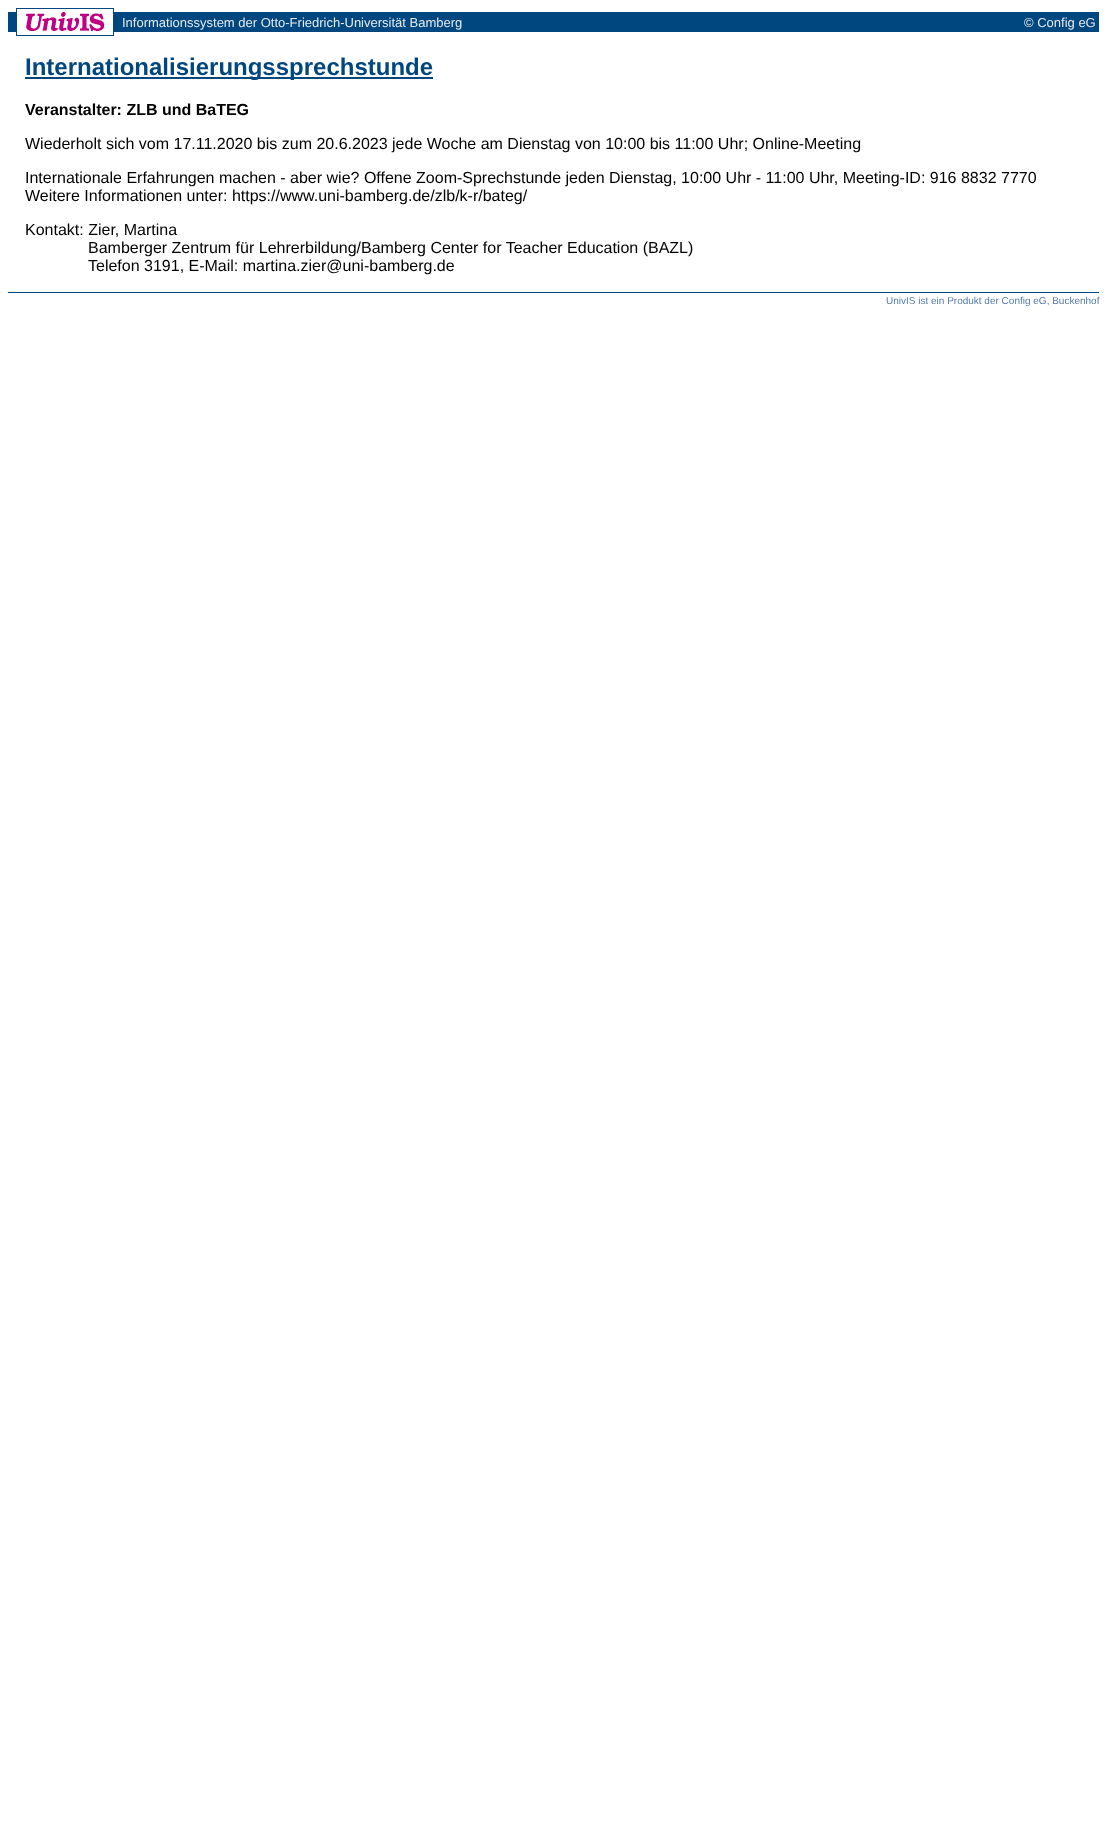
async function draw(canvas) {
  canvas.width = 1107;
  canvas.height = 1822;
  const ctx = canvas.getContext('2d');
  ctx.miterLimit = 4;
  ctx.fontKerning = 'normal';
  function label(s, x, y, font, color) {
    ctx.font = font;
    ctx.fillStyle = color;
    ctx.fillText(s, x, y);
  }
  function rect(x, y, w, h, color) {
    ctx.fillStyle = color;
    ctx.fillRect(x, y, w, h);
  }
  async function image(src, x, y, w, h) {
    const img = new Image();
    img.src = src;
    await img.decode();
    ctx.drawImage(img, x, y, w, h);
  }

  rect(0, 0, 1107, 1822, '#fff');
  rect(16, 8, 98, 1, '#00467f');
  rect(16, 9, 1, 3, '#00467f');
  rect(113, 9, 1, 26, '#00467f');
  rect(8, 12, 9, 20, '#00467f');
  await image('assets/img1.png', 26, 12, 79, 19);
  rect(114, 12, 985, 20, '#00467f');
  label('Informationssystem der Otto-Friedrich-Universität Bamberg', 122, 27, '13px Liberation Sans', '#e5ebef');
  label('© Config eG', 1024, 27, '13px Liberation Sans', '#e5ebef');
  rect(16, 32, 1, 4, '#00467f');
  rect(17, 35, 97, 1, '#00467f');
  rect(25, 77, 408, 2, '#00467f');
  label('Internationalisierungssprechstunde', 25, 75, 'bold 24px Liberation Sans', '#00467f');
  label('Veranstalter: ZLB und BaTEG', 25, 115, 'bold 16px Liberation Sans', '#000');
  label('Wiederholt sich vom 17.11.2020 bis zum 20.6.2023 jede Woche am Dienstag von 10:00 bis 11:00 Uhr; Online-Meeting', 25, 149, '16px Liberation Sans', '#000');
  label('Internationale Erfahrungen machen - aber wie? Offene Zoom-Sprechstunde jeden Dienstag, 10:00 Uhr - 11:00 Uhr, Meeting-ID: 916 8832 7770', 25, 183, '16px Liberation Sans', '#000');
  label('Weitere Informationen unter: https://www.uni-bamberg.de/zlb/k-r/bateg/', 25, 201, '16px Liberation Sans', '#000');
  label('Kontakt: Zier, Martina', 25, 235, '16px Liberation Sans', '#000');
  label('Bamberger Zentrum für Lehrerbildung/Bamberg Center for Teacher Education (BAZL)', 88, 253, '16px Liberation Sans', '#000');
  label('Telefon 3191, E-Mail: martina.zier@uni-bamberg.de', 88, 271, '16px Liberation Sans', '#000');
  rect(8, 292, 1091, 1, '#00467f');
  label('UnivIS ist ein Produkt der Config eG, Buckenhof', 886, 304, '10px Liberation Sans', '#557aa9');
}

draw(document.querySelector('canvas'));
